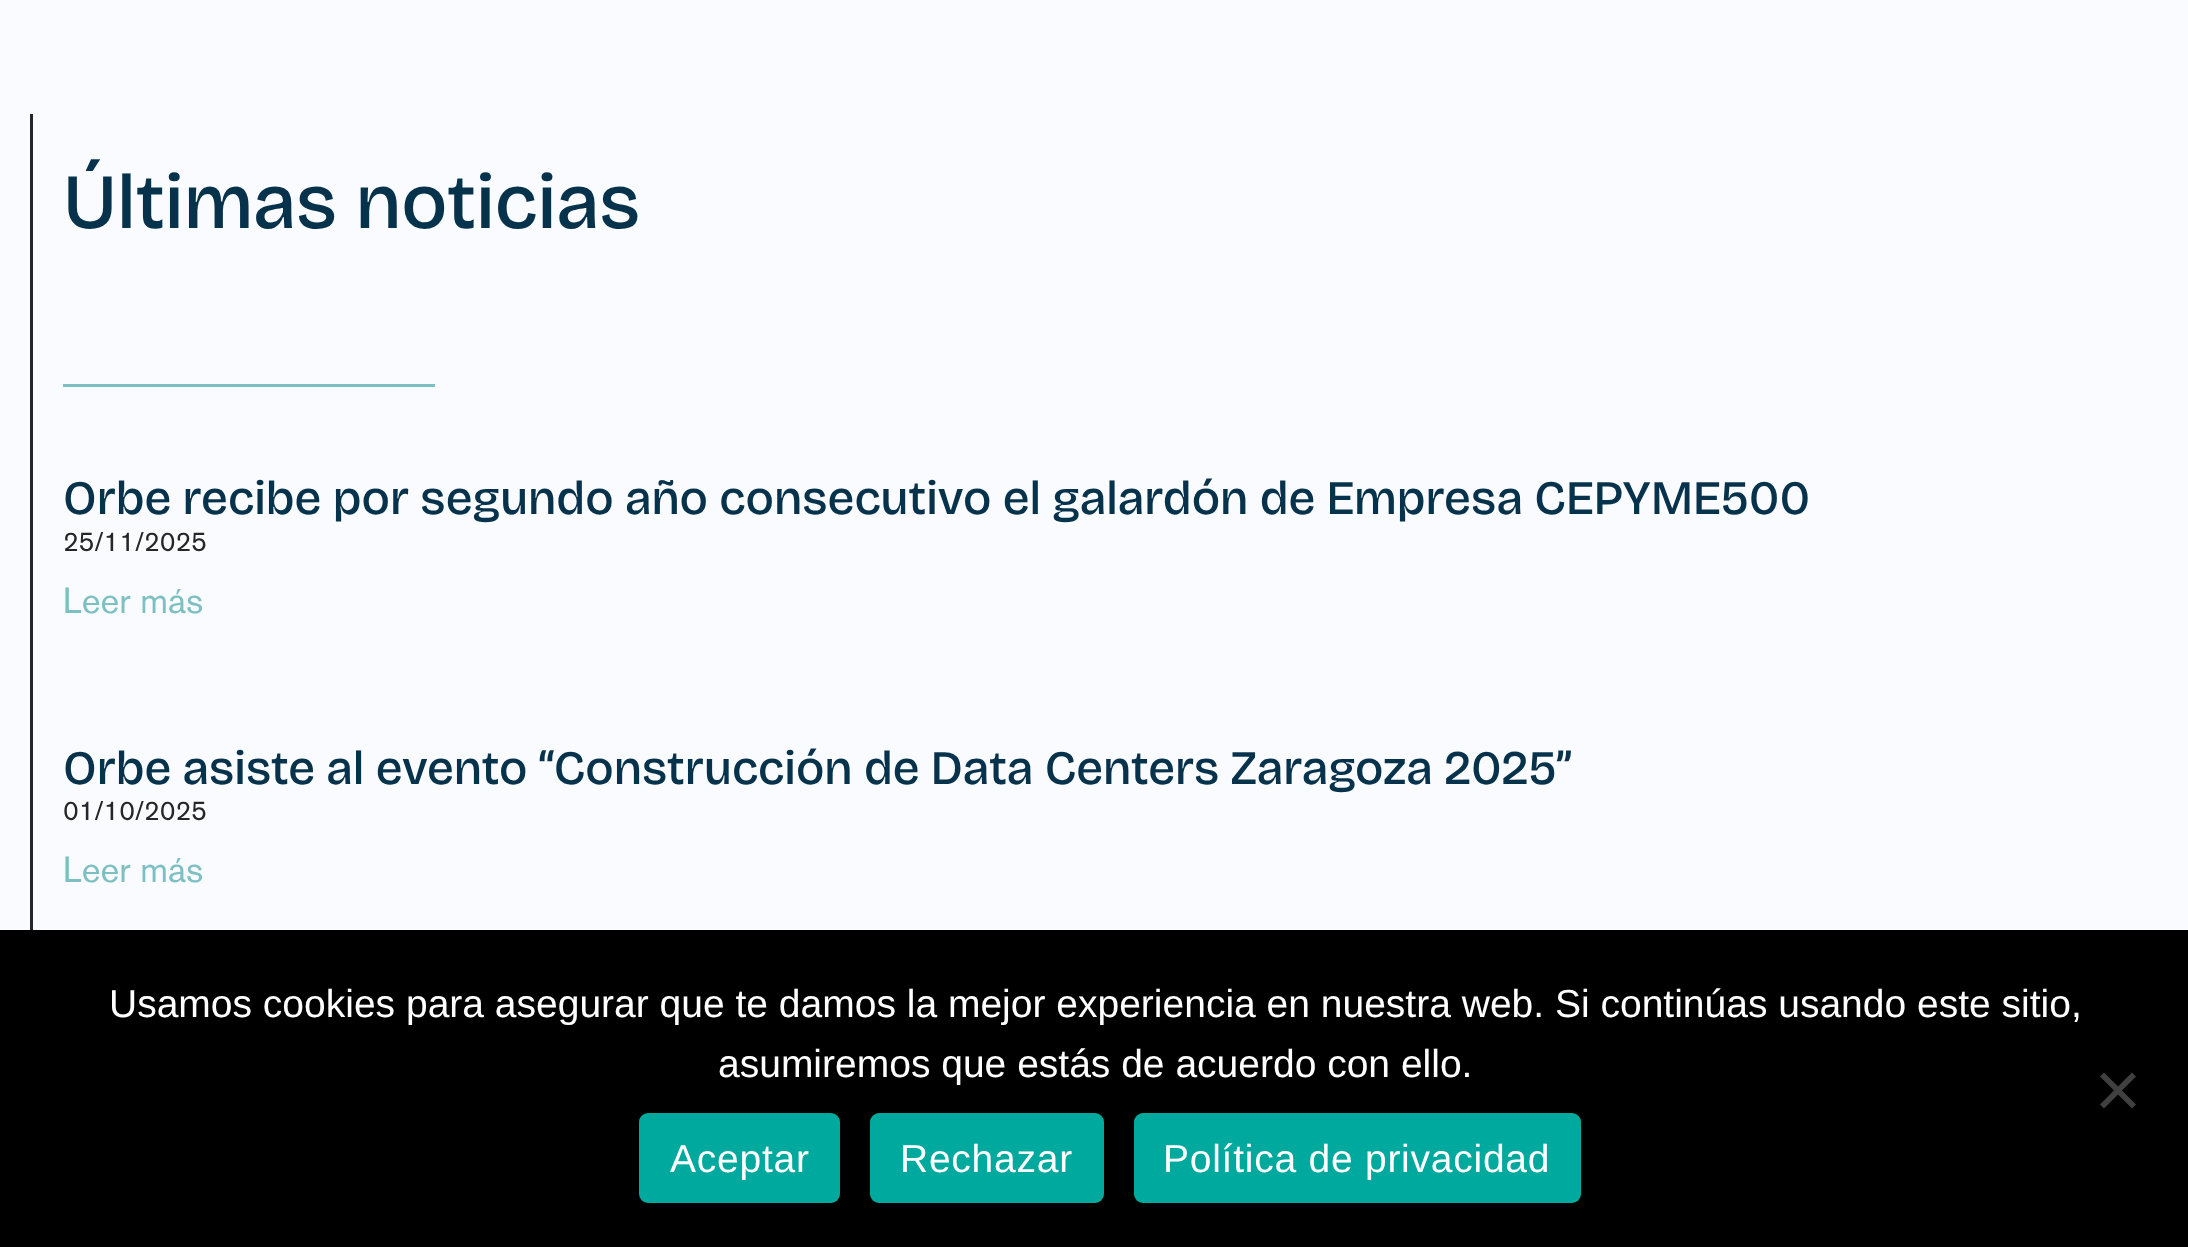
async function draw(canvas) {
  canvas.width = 2188;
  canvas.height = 1247;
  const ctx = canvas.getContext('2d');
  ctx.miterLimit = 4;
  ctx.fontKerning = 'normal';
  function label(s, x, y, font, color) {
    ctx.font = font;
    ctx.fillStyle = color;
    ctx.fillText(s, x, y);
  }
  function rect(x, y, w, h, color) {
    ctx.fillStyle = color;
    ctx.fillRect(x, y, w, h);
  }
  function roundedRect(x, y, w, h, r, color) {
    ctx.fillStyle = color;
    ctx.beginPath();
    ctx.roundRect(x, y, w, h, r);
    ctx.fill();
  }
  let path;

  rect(0, 0, 2188, 1247, '#fafbfe');
  rect(30, 114, 3, 816, '#262626');
  label('Últimas noticias', 63, 228, '500 78px Bricolage Grotesque', '#07324b');
  rect(63, 384, 372, 3, '#7dc0c3');
  label('Orbe recibe por segundo año consecutivo el galardón de Empresa CEPYME500', 63, 514, '500 48px Bricolage Grotesque', '#07324b');
  label('25/11/2025', 63, 551, '500 27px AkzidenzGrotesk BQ', '#262626');
  label('Leer más', 63, 613, '500 36px AkzidenzGrotesk BQ', '#7dc0c3');
  label('Orbe asiste al evento “Construcción de Data Centers Zaragoza 2025”', 63, 784, '500 48px Bricolage Grotesque', '#07324b');
  label('01/10/2025', 63, 820, '500 27px AkzidenzGrotesk BQ', '#262626');
  label('Leer más', 63, 882, '500 36px AkzidenzGrotesk BQ', '#7dc0c3');
  rect(0, 930, 2188, 317, '#000');
  label('Usamos cookies para asegurar que te damos la mejor experiencia en nuestra web. Si continúas usando este sitio,', 109, 1017, '39px Liberation Sans', '#fff');
  label('asumiremos que estás de acuerdo con ello.', 718, 1077, '39px Liberation Sans', '#fff');
  ctx.fillStyle = '#404040';
  path = new Path2D('M2132 1072.5L2136 1076.5L2104 1108.5L2100 1104.5Z');
  ctx.fill(path);
  path = new Path2D('M2100 1076.5L2104 1072.5L2136 1104.5L2132 1108.5Z');
  ctx.fill(path);
  roundedRect(639, 1113, 201, 90, 9, '#00a99d');
  ctx.letterSpacing = '0.75px';
  label('Aceptar', 670, 1172, '39px Liberation Sans', '#fff');
  roundedRect(870, 1113, 234, 90, 9, '#00a99d');
  label('Rechazar', 900, 1172, '39px Liberation Sans', '#fff');
  roundedRect(1134, 1113, 447, 90, 9, '#00a99d');
  label('Política de privacidad', 1163, 1172, '39px Liberation Sans', '#fff');
}

draw(document.querySelector('canvas'));
